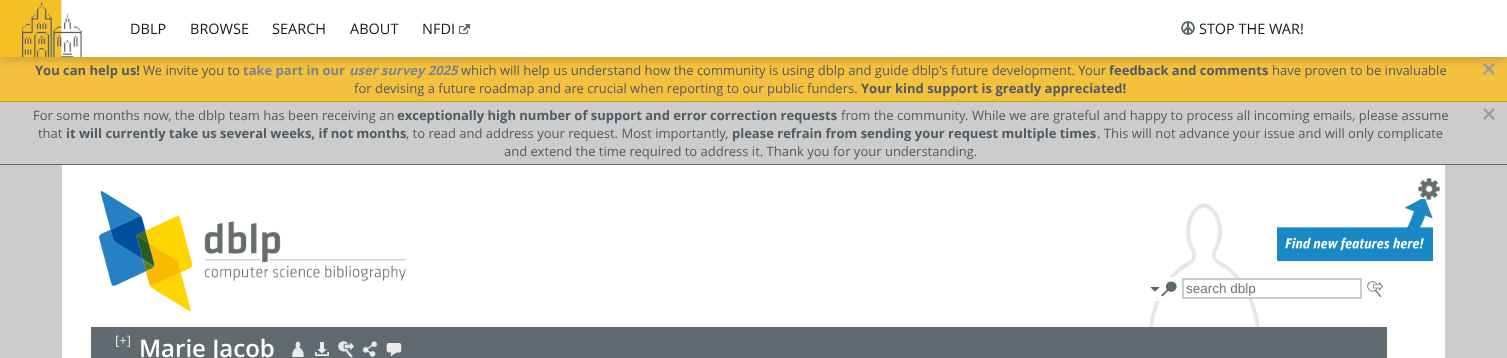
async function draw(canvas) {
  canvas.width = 1507;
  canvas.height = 358;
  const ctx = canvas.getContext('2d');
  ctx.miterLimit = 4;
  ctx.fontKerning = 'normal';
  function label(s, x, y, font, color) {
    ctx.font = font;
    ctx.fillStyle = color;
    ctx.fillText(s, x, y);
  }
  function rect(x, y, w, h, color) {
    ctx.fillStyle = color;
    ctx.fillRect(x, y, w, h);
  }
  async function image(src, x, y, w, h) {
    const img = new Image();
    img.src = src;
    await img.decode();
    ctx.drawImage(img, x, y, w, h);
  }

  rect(0, 0, 1507, 358, '#ccc');
  rect(0, 57, 1507, 44, '#f4c13f');
  await image('assets/img4.png', 1483, 63, 12, 12);
  ctx.fillStyle = '#00000033';
  ctx.filter = 'blur(5px)';
  ctx.beginPath();
  ctx.rect(0, 2, 1507, 57);
  ctx.fill();
  ctx.filter = 'none';
  rect(82, 0, 1425, 57, '#fff');
  await image('assets/img1.png', 0, 0, 82, 57);
  label('DBLP', 130, 34, '14.5px Open Sans', '#16181b');
  label('BROWSE', 190, 34, '14.5px Open Sans', '#16181b');
  label('SEARCH', 272, 34, '14.5px Open Sans', '#16181b');
  label('ABOUT', 350, 34, '14.5px Open Sans', '#16181b');
  label('NFDI', 422, 34, '14.5px Open Sans', '#16181b');
  await image('assets/img2.png', 458, 24, 12, 10);
  await image('assets/img3.png', 1181, 21, 14, 14);
  label('STOP THE WAR!', 1199, 34, '14.5px Open Sans', '#16181b');
  rect(0, 101, 1507, 1, '#ba0');
  label('You can help us!', 35, 75, 'bold 13px Open Sans', '#505b62');
  label('We invite you to', 143, 75, '13px Open Sans', '#505b62');
  label('take part in our', 243, 75, 'bold 13px Open Sans', '#7d848a');
  label('user survey 2025', 349, 75, 'italic bold 13px Open Sans', '#7d848a');
  label('which will help us understand how the community is using dblp and guide dblp\'s future development. Your', 461, 75, '13px Open Sans', '#505b62');
  label('feedback and comments', 1109, 75, 'bold 13px Open Sans', '#505b62');
  label('have proven to be invaluable', 1272, 75, '13px Open Sans', '#505b62');
  label('for devising a future roadmap and are crucial when reporting to our public funders.', 354, 93, '13px Open Sans', '#505b62');
  label('Your kind support is greatly appreciated!', 861, 93, 'bold 13px Open Sans', '#505b62');
  rect(0, 164, 1507, 1, '#606b70');
  label('For some months now, the dblp team has been receiving an', 33, 120, '13px Open Sans', '#505b62');
  label('exceptionally high number of support and error correction requests', 397, 120, 'bold 13px Open Sans', '#505b62');
  label('from the community. While we are grateful and happy to process all incoming emails, please assume', 841, 120, '13px Open Sans', '#505b62');
  await image('assets/img5.png', 1483, 108, 12, 12);
  label('that', 38, 138, '13px Open Sans', '#505b62');
  label('it will currently take us several weeks, if not months', 66, 138, 'bold 13px Open Sans', '#505b62');
  label(', to read and address your request. Most importantly,', 406, 138, '13px Open Sans', '#505b62');
  label('please refrain from sending your request multiple times', 732, 138, 'bold 13px Open Sans', '#505b62');
  label('. This will not advance your issue and will only complicate', 1097, 138, '13px Open Sans', '#505b62');
  label('and extend the time required to address it. Thank you for your understanding.', 504, 156, '13px Open Sans', '#505b62');
  rect(62, 165, 1383, 193, '#fff');
  await image('assets/img6.png', 1149, 203, 111, 124);
  await image('assets/img7.png', 99, 191, 308, 120);
  await image('assets/img9.png', 1277, 199, 156, 62);
  await image('assets/img8.png', 1418, 178, 22, 22);
  rect(1155, 277, 20, 24, '#fff');
  await image('assets/img10.png', 1150, 287, 10, 5);
  await image('assets/img11.png', 1161, 281, 16, 16);
  rect(1236, 280, 16, 17, '#fff');
  ctx.strokeStyle = '#ccc';
  ctx.lineWidth = 2;
  ctx.strokeRect(1183, 279, 178, 19);
  label('search dblp', 1186, 293, '13.5px Liberation Sans', '#757575');
  await image('assets/img12.png', 1367, 281, 16, 16);
  rect(91, 327, 1296, 31, '#606b70');
  label('[+]', 115, 345, '13px Open Sans', '#ebebeb');
  label('Marie Jacob', 139, 357, '600 24px Open Sans', '#fff');
  await image('assets/img13.png', 291, 341, 13, 16);
  await image('assets/img14.png', 315, 342, 14, 14);
  await image('assets/img15.png', 338, 341, 16, 16);
  await image('assets/img16.png', 362, 341, 16, 16);
  await image('assets/img17.png', 386, 343, 16, 14);
}

draw(document.querySelector('canvas'));
